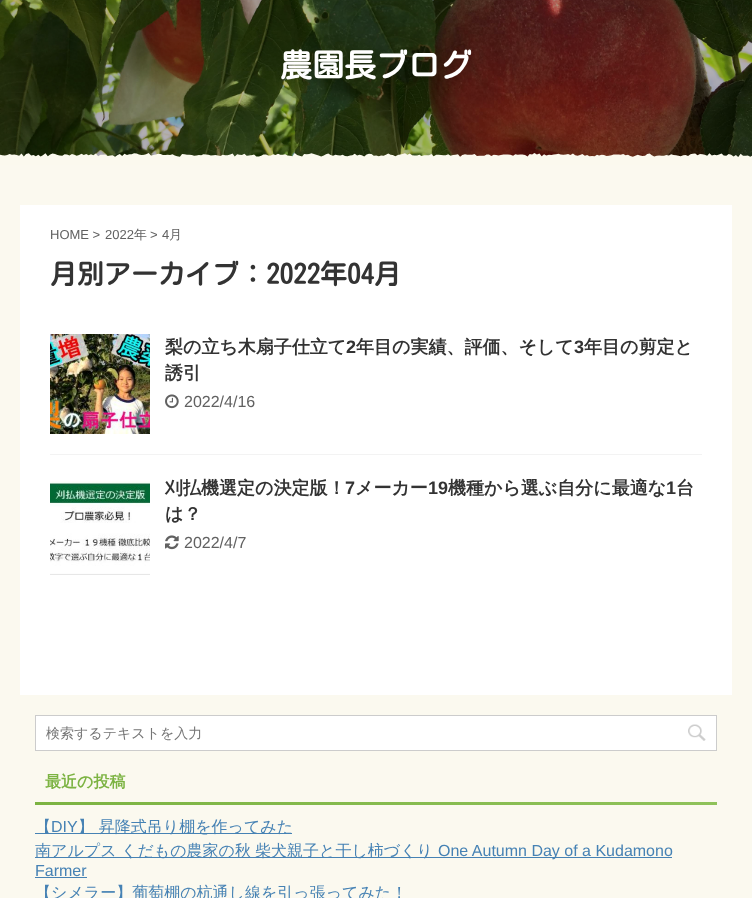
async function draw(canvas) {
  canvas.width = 752;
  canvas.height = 898;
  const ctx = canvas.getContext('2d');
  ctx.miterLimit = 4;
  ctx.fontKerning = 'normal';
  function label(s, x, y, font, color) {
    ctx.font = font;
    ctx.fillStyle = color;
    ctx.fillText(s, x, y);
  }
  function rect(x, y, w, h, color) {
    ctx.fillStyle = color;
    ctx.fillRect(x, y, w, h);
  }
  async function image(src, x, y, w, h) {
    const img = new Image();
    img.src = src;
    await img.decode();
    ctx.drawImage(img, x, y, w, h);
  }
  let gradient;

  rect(0, 0, 752, 898, '#fff');
  await image('assets/img1.png', 0, 0, 752, 157);
  label('農園長ブログ', 280, 77, 'bold 32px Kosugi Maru', '#fff');
  rect(0, 165, 752, 733, '#fbf9ef');
  await image('assets/img2.png', 0, 153, 752, 12);
  rect(20, 205, 712, 490, '#fff');
  label('HOME >', 50, 239, '13px Liberation Sans', '#616161');
  label('2022', 105, 239, '13px Liberation Sans', '#616161');
  label('年', 134, 239, '500 13px WenQuanYi Zen Hei', '#616161');
  label('>', 150, 239, '13px Liberation Sans', '#616161');
  label('4', 162, 239, '13px Liberation Sans', '#616161');
  label('月', 169, 239, '500 13px WenQuanYi Zen Hei', '#616161');
  label('月別アーカイブ：2022年04月', 50, 284, 'bold 27px Kosugi Maru', '#333');
  rect(50, 454, 652, 1, '#f3f3f3');
  await image('assets/img3.png', 50, 334, 100, 100);
  label('梨の立ち木扇子仕立て', 165, 353, 'bold 18px WenQuanYi Zen Hei', '#333');
  label('2', 346, 353, 'bold 18px Liberation Sans', '#333');
  label('年目の実績、評価、そして', 356, 353, 'bold 18px WenQuanYi Zen Hei', '#333');
  label('3', 574, 353, 'bold 18px Liberation Sans', '#333');
  label('年目の剪定と', 584, 353, 'bold 18px WenQuanYi Zen Hei', '#333');
  label('誘引', 165, 379, 'bold 18px WenQuanYi Zen Hei', '#333');
  await image('assets/img4.png', 165, 394, 14, 15);
  label('2022/4/16', 184, 407, '16px Liberation Sans', '#616161');
  await image('assets/img5.png', 50, 481, 100, 94);
  label('刈払機選定の決定版！', 165, 494, 'bold 18px WenQuanYi Zen Hei', '#333');
  label('7', 345, 494, 'bold 18px Liberation Sans', '#333');
  label('メーカー', 355, 494, 'bold 18px WenQuanYi Zen Hei', '#333');
  label('19', 428, 494, 'bold 18px Liberation Sans', '#333');
  label('機種から選ぶ自分に最適な', 448, 494, 'bold 18px WenQuanYi Zen Hei', '#333');
  label('1', 666, 494, 'bold 18px Liberation Sans', '#333');
  label('台', 676, 494, 'bold 18px WenQuanYi Zen Hei', '#333');
  label('は？', 165, 520, 'bold 18px WenQuanYi Zen Hei', '#333');
  await image('assets/img6.png', 165, 535, 14, 15);
  label('2022/4/7', 184, 548, '16px Liberation Sans', '#616161');
  ctx.strokeStyle = '#ccc';
  ctx.strokeRect(35.5, 715.5, 681, 35);
  rect(36, 716, 680, 34, '#fff');
  label('検索するテキストを入力', 46, 738, '500 14px WenQuanYi Zen Hei', '#757575');
  await image('assets/img7.png', 688, 724, 18, 17);
  label('最近の投稿', 45, 787, 'bold 16px WenQuanYi Zen Hei', '#7cb342');
  gradient = ctx.createLinearGradient(717, 804, 35, 804);
  gradient.addColorStop(0, '#8fc25a');
  gradient.addColorStop(1, '#7cb342');
  ctx.fillStyle = gradient;
  ctx.fillRect(35, 802, 682, 3);
  rect(35, 833, 257, 1, '#4682b4');
  label('【', 35, 832, '500 16px WenQuanYi Zen Hei', '#4682b4');
  label('DIY', 51, 832, '16px Liberation Sans', '#4682b4');
  label('】 昇降式吊り棚を作ってみた', 78, 832, '500 16px WenQuanYi Zen Hei', '#4682b4');
  rect(35, 857, 637, 1, '#4682b4');
  label('南アルプス', 35, 856, '500 16px WenQuanYi Zen Hei', '#4682b4');
  label('くだもの農家の秋', 121, 856, '500 16px WenQuanYi Zen Hei', '#4682b4');
  label('柴犬親子と干し柿づくり', 255, 856, '500 16px WenQuanYi Zen Hei', '#4682b4');
  label('One Autumn Day of a Kudamono', 438, 856, '16px Liberation Sans', '#4682b4');
  label('Farmer', 35, 876, '16px Liberation Sans', '#4682b4');
  rect(35, 877, 52, 1, '#4682b4');
  label('【シメラー】葡萄棚の杭通し線を引っ張ってみた！', 35, 898, '500 16px WenQuanYi Zen Hei', '#4682b4');
}

draw(document.querySelector('canvas'));
